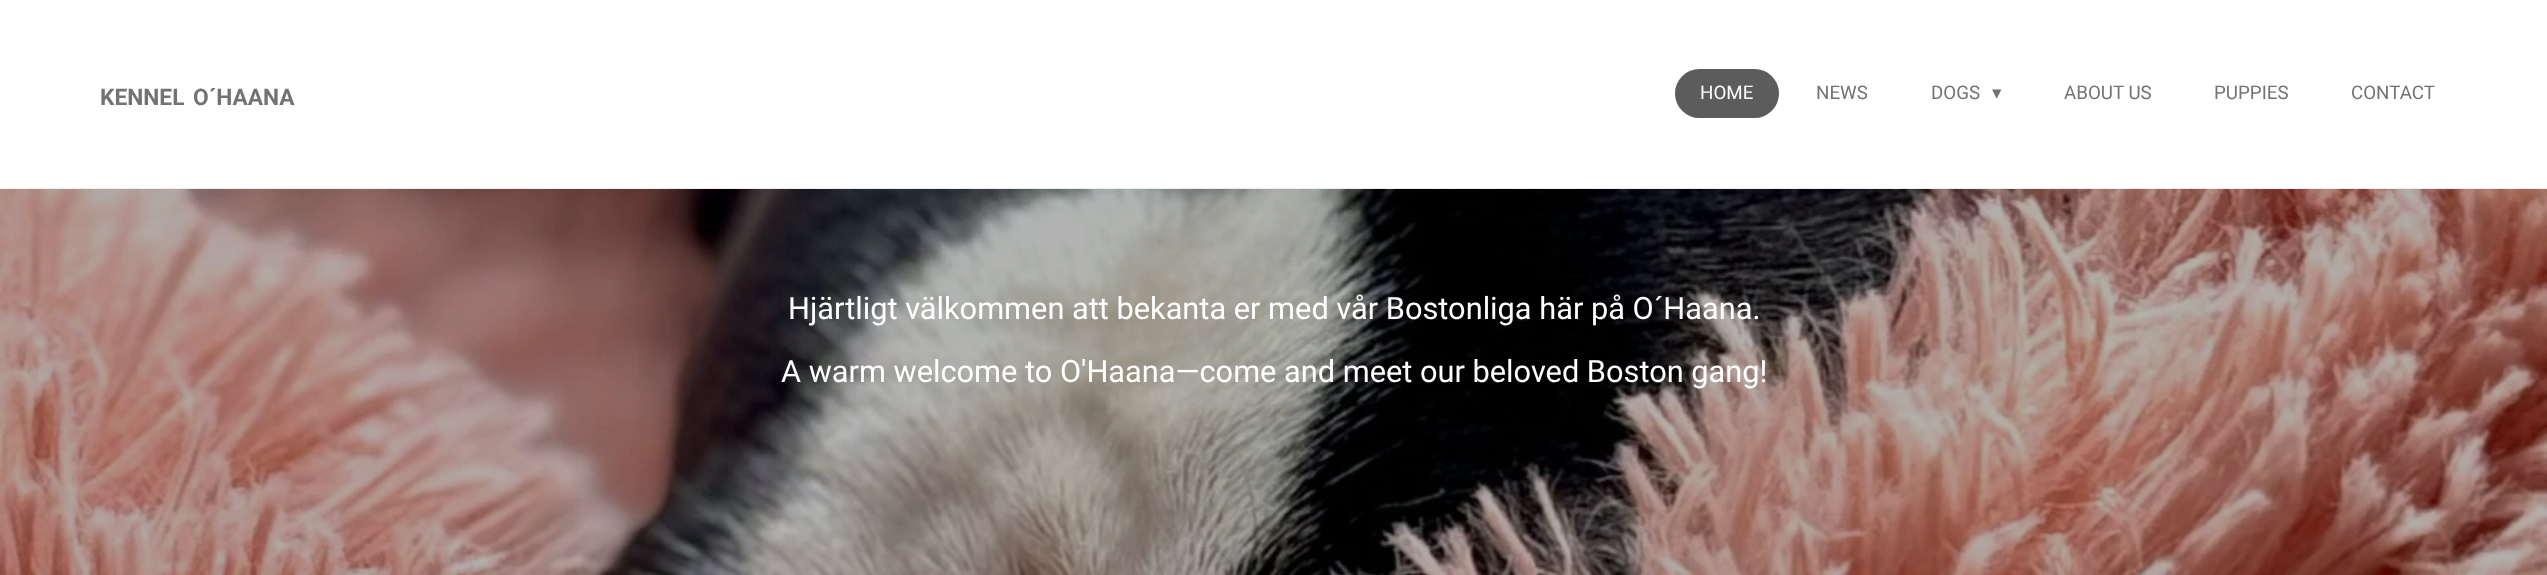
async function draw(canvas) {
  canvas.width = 2547;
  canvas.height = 575;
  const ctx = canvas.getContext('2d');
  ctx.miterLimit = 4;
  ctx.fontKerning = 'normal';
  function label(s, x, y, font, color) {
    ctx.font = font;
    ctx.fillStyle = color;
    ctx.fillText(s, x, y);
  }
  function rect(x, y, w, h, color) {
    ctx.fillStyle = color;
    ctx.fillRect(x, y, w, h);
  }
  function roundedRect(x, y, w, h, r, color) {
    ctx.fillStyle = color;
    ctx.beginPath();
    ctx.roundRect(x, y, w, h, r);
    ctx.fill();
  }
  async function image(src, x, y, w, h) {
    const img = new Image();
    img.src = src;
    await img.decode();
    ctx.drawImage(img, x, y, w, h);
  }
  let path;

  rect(0, 0, 2547, 575, '#fff');
  ctx.fillStyle = '#ededed';
  path = new Path2D('M0 188V189H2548V1V188Z');
  ctx.fill(path);
  label('KENNEL', 100, 105, 'bold 22.75px Roboto', '#737373');
  label('O´HAANA', 193, 105, 'bold 22.75px Roboto', '#737373');
  roundedRect(1675, 69, 104, 49, 24.5, '#5c5c5c');
  label('HOME', 1700, 99, '18.75px Roboto', '#fff');
  label('NEWS', 1816, 99, '18.75px Roboto', '#737373');
  label('DOGS', 1931, 99, '18.75px Roboto', '#737373');
  label('▾', 1992, 99, '18.75px DejaVu Sans', '#737373');
  label('ABOUT US', 2064, 99, '18.75px Roboto', '#737373');
  label('PUPPIES', 2214, 99, '18.75px Roboto', '#737373');
  label('CONTACT', 2351, 99, '18.75px Roboto', '#737373');
  await image('assets/img1.png', 0, 189, 2547, 386);
  label('Hjärtligt välkommen att bekanta er med vår Bostonliga här på O´Haana.', 788, 319, '30.75px Roboto', '#fff');
  label('A warm welcome to O\'Haana—come and meet our beloved Boston gang!', 781, 382, '30.75px Roboto', '#fff');
}

draw(document.querySelector('canvas'));
